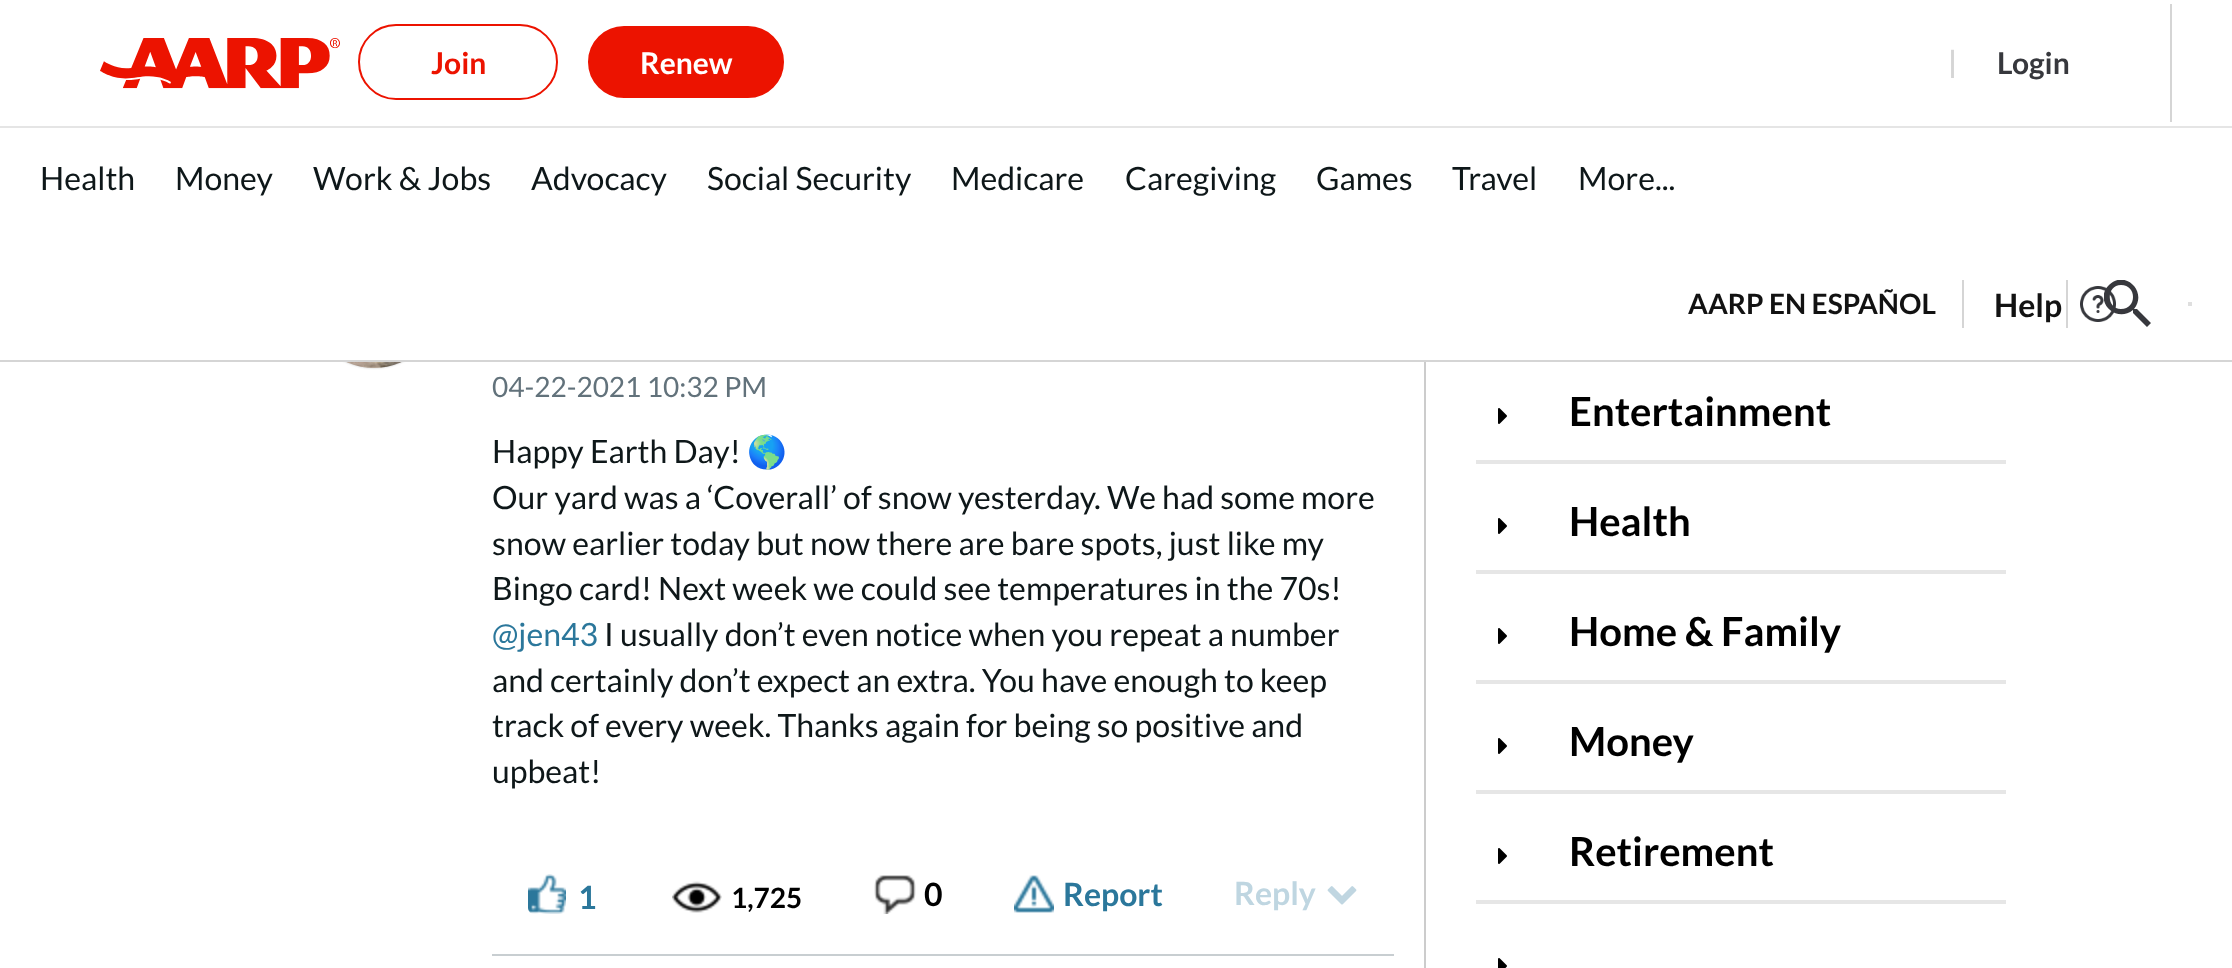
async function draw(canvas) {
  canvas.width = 2232;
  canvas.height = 968;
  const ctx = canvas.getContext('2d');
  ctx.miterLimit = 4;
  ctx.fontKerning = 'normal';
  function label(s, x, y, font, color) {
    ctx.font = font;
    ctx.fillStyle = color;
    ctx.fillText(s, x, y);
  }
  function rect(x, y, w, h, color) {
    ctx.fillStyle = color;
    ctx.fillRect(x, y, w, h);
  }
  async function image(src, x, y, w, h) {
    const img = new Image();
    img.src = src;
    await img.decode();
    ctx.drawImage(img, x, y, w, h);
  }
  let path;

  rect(0, 0, 2232, 968, '#fff');
  rect(0, 126, 2232, 2, '#e5e5e5');
  await image('assets/img1.png', 100, 38, 240, 51);
  ctx.beginPath();
  ctx.roundRect(359, 25, 198, 74, 37);
  ctx.strokeStyle = '#ec1300';
  ctx.lineWidth = 2;
  ctx.stroke();
  label('Join', 431, 74, 'bold 30px Lato', '#ec1300');
  ctx.beginPath();
  ctx.roundRect(587, 25, 198, 74, 37);
  ctx.fill();
  ctx.strokeStyle = '#fff';
  ctx.stroke();
  label('Renew', 640, 74, 'bold 30px Lato', '#fff');
  label('|', 1948, 73, 'bold 30px Lato', '#d5d5d5');
  rect(2170, 4, 2, 118, '#d5d5d5');
  label('Login', 1997, 74, 'bold 30px Lato', '#37383d');
  ctx.fillStyle = '#ccc';
  ctx.filter = 'blur(1px)';
  ctx.beginPath();
  ctx.roundRect(306, 232, 136, 136, 68);
  ctx.fill();
  ctx.filter = 'none';
  rect(304, 230, 140, 130, '#fff');
  rect(0, 360, 2232, 2, '#d5d5d5');
  label('Health', 40, 190, '32px Lato', '#0e1719');
  label('Money', 175, 190, '32px Lato', '#0e1719');
  label('Work & Jobs', 313, 190, '32px Lato', '#0e1719');
  label('Advocacy', 531, 190, '32px Lato', '#0e1719');
  label('Social Security', 707, 190, '32px Lato', '#0e1719');
  label('Medicare', 951, 190, '32px Lato', '#0e1719');
  label('Caregiving', 1125, 190, '32px Lato', '#0e1719');
  label('Games', 1316, 190, '32px Lato', '#0e1719');
  label('Travel', 1452, 190, '32px Lato', '#0e1719');
  label('More...', 1578, 190, '32px Lato', '#0e1719');
  label('AARP EN ESPAÑOL', 1688, 314, 'bold 28px Lato', '#121212');
  rect(2066, 280, 2, 48, '#d5d5d5');
  rect(1962, 280, 2, 48, '#d5d5d5');
  label('Help', 1994, 317, 'bold 32px Lato', '#121212');
  await image('assets/img2.png', 2080, 286, 36, 36);
  ctx.save();
  ctx.beginPath();
  ctx.rect(2104, 280, 48, 48);
  ctx.clip();
  ctx.fillStyle = '#37383d';
  path = new Path2D('M2137 309H2135H2134C2148 292 2125 269 2109 285C2093 301 2116 324 2133 310V311V313L2147 327L2151 323ZM2121 309C2106 309 2106 285 2121 285C2137 285 2137 309 2121 309Z');
  ctx.fill(path);
  ctx.restore();
  rect(2188, 302, 4, 4, '#dfdfdf');
  rect(1424, 362, 2, 606, '#ccc');
  await image('assets/img3.png', 346, 362, 56, 6);
  label('04-22-2021 10:32 PM', 492, 397, '28px Lato', '#62727b');
  label('Happy Earth Day!', 492, 463, '32px Lato', '#0e1719');
  label('🌎', 747, 463, '32px Noto Color Emoji', '#0e1719');
  label('Our yard was a ‘Coverall’ of snow yesterday. We had some more', 492, 509, '32px Lato', '#0e1719');
  label('snow earlier today but now there are bare spots, just like my', 492, 555, '32px Lato', '#0e1719');
  label('Bingo card! Next week we could see temperatures in the 70s!', 492, 600, '32px Lato', '#0e1719');
  label('@jen43', 492, 646, '32px Lato', '#2b779b');
  label('I usually don’t even notice when you repeat a number', 604, 646, '32px Lato', '#0e1719');
  label('and certainly don’t expect an extra. You have enough to keep', 492, 692, '32px Lato', '#0e1719');
  label('track of every week. Thanks again for being so positive and', 492, 737, '32px Lato', '#0e1719');
  label('upbeat!', 492, 783, '32px Lato', '#0e1719');
  rect(492, 954, 902, 2, '#c8ced1');
  await image('assets/img4.png', 528, 874, 38, 40);
  label('1', 578, 909, 'bold 32px Lato', '#2b779b');
  await image('assets/img5.png', 672, 881, 50, 32);
  label('1,725', 731, 908, 'bold 28px Lato', '#000');
  await image('assets/img6.png', 874, 875, 42, 39);
  label('0', 924, 906, 'bold 32px Lato', '#000');
  await image('assets/img7.png', 1014, 875, 40, 38);
  label('Report', 1063, 906, 'bold 32px Lato', '#2b779b');
  label('Reply', 1234, 905, 'bold 32px Lato', '#bfd6e1');
  await image('assets/img8.png', 1327, 886, 30, 19);
  rect(1476, 460, 530, 4, '#e6e6e6');
  await image('assets/img9.png', 1498, 408, 9, 16);
  label('Entertainment', 1569, 426, 'bold 40px Lato', '#000');
  rect(1476, 570, 530, 4, '#e6e6e6');
  await image('assets/img9.png', 1498, 518, 9, 16);
  label('Health', 1569, 536, 'bold 40px Lato', '#000');
  rect(1476, 680, 530, 4, '#e6e6e6');
  await image('assets/img9.png', 1498, 628, 9, 16);
  label('Home & Family', 1569, 646, 'bold 40px Lato', '#000');
  rect(1476, 790, 530, 4, '#e6e6e6');
  await image('assets/img9.png', 1498, 738, 9, 16);
  label('Money', 1569, 756, 'bold 40px Lato', '#000');
  rect(1476, 900, 530, 4, '#e6e6e6');
  await image('assets/img9.png', 1498, 848, 9, 16);
  label('Retirement', 1569, 866, 'bold 40px Lato', '#000');
  await image('assets/img10.png', 1498, 958, 9, 10);
}

draw(document.querySelector('canvas'));
